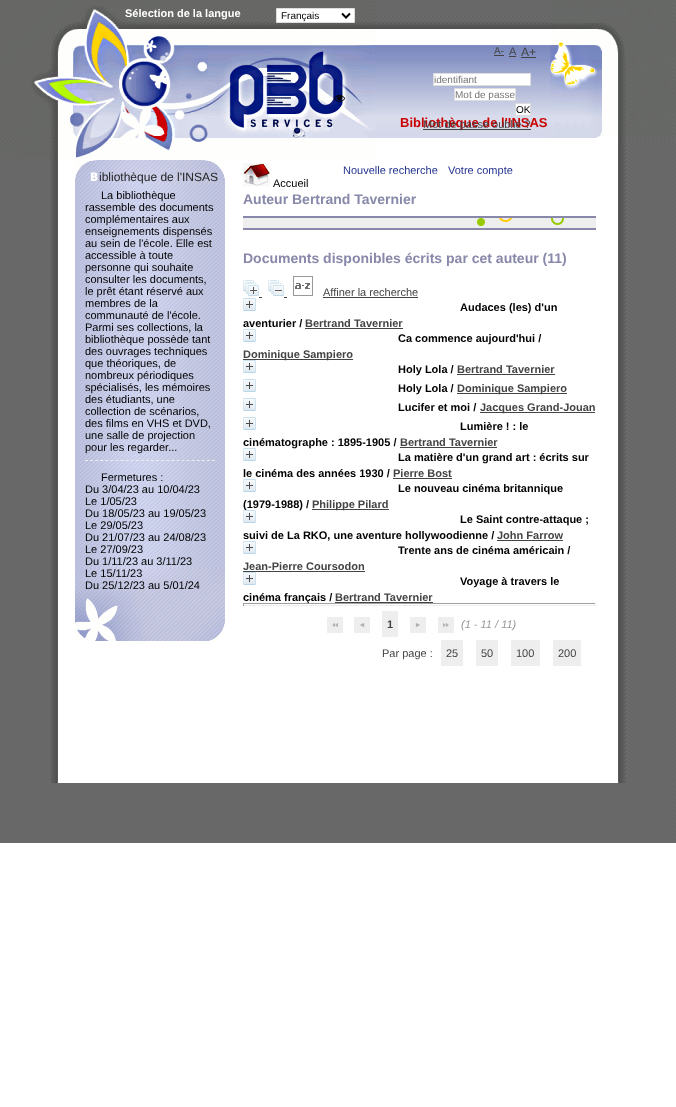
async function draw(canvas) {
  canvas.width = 676;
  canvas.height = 1107;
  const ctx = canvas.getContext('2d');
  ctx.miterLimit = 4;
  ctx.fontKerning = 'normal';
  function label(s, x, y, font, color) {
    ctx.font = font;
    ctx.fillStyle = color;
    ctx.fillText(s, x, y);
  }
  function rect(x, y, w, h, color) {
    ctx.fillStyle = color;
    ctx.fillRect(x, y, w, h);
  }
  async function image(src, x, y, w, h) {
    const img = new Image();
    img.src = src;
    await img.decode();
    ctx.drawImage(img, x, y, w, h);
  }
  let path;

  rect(0, 0, 676, 1107, '#fff');
  await image('assets/img1.png', 376, 0, 174, 138);
  await image('assets/img2.png', 0, 158, 58, 625);
  await image('assets/img8.png', 0, 0, 376, 158);
  label('Sélection de la langue', 125, 17, 'bold 11px Liberation Sans', '#fff');
  ctx.beginPath();
  ctx.rect(276.5, 8.5, 78, 14);
  ctx.fill();
  ctx.strokeStyle = '#ddd';
  ctx.stroke();
  path = new Path2D('M342 13.5L346 17.5L350 13.5');
  ctx.strokeStyle = '#000';
  ctx.lineWidth = 2;
  ctx.stroke(path);
  label('Français', 281, 19, '10px Liberation Sans', '#000');
  label('A-', 494, 54, '10px Liberation Sans', '#444');
  rect(494, 55, 10, 1, '#444');
  label('A', 509, 55, '11px Liberation Sans', '#444');
  rect(509, 56, 7, 1, '#444');
  label('A+', 521, 56, '12px Liberation Sans', '#444');
  rect(521, 57, 15, 1, '#444');
  ctx.fillStyle = '#fff';
  ctx.beginPath();
  ctx.rect(433.5, 73.5, 97, 12);
  ctx.fill();
  ctx.strokeStyle = '#ddd';
  ctx.lineWidth = 1;
  ctx.stroke();
  label('identifiant', 434, 83, '10px Liberation Sans', '#757575');
  await image('assets/img3.png', 334, 94, 11, 8);
  ctx.fillStyle = '#fff';
  ctx.beginPath();
  ctx.rect(454.5, 88.5, 61, 12);
  ctx.fill();
  ctx.stroke();
  label('Mot de passe', 455, 98, '10px Liberation Sans', '#757575');
  ctx.fillStyle = '#fff';
  ctx.beginPath();
  ctx.rect(515.5, 103.5, 15, 12);
  ctx.fill();
  ctx.stroke();
  label('OK', 516, 113, '10px Liberation Sans', '#000');
  label('Bibliothèque de l\'INSAS', 400, 127, 'bold 13px Liberation Sans', '#ca0000');
  rect(423, 129, 108, 1, '#444');
  label('Mot de passe oublié ?', 423, 128, '11px Liberation Sans', '#444');
  await image('assets/img4.png', 75, 184, 150, 384);
  await image('assets/img5.png', 75, 160, 150, 24);
  label('B', 90, 181, '900 12px Noto Sans', '#fff');
  label('ibliothèque de l\'INSAS', 99, 181, '12px Liberation Sans', '#222');
  path = new Path2D('M85 460.5H215');
  ctx.strokeStyle = '#eee';
  ctx.setLineDash([3, 2.08]);
  ctx.stroke(path);
  label('La bibliothèque', 101, 199, '11px Liberation Sans', '#000');
  label('rassemble des documents', 85, 211, '11px Liberation Sans', '#000');
  label('complémentaires aux', 85, 223, '11px Liberation Sans', '#000');
  label('enseignements dispensés', 85, 235, '11px Liberation Sans', '#000');
  label('au sein de l\'école. Elle est', 85, 247, '11px Liberation Sans', '#000');
  label('accessible à toute', 85, 259, '11px Liberation Sans', '#000');
  label('personne qui souhaite', 85, 271, '11px Liberation Sans', '#000');
  label('consulter les documents,', 85, 283, '11px Liberation Sans', '#000');
  label('le prêt étant réservé aux', 85, 295, '11px Liberation Sans', '#000');
  label('membres de la', 85, 307, '11px Liberation Sans', '#000');
  label('communauté de l\'école.', 85, 319, '11px Liberation Sans', '#000');
  label('Parmi ses collections, la', 85, 331, '11px Liberation Sans', '#000');
  label('bibliothèque possède tant', 85, 343, '11px Liberation Sans', '#000');
  label('des ouvrages techniques', 85, 355, '11px Liberation Sans', '#000');
  label('que théoriques, de', 85, 367, '11px Liberation Sans', '#000');
  label('nombreux périodiques', 85, 379, '11px Liberation Sans', '#000');
  label('spécialisés, les mémoires', 85, 391, '11px Liberation Sans', '#000');
  label('des étudiants, une', 85, 403, '11px Liberation Sans', '#000');
  label('collection de scénarios,', 85, 415, '11px Liberation Sans', '#000');
  label('des films en VHS et DVD,', 85, 427, '11px Liberation Sans', '#000');
  label('une salle de projection', 85, 439, '11px Liberation Sans', '#000');
  label('pour les regarder...', 85, 451, '11px Liberation Sans', '#000');
  await image('assets/img6.png', 75, 568, 150, 73);
  label('Fermetures :', 101, 481, '11px Liberation Sans', '#000');
  label('Du 3/04/23 au 10/04/23', 85, 493, '11px Liberation Sans', '#000');
  label('Le 1/05/23', 85, 505, '11px Liberation Sans', '#000');
  label('Du 18/05/23 au 19/05/23', 85, 517, '11px Liberation Sans', '#000');
  label('Le 29/05/23', 85, 529, '11px Liberation Sans', '#000');
  label('Du 21/07/23 au 24/08/23', 85, 541, '11px Liberation Sans', '#000');
  label('Le 27/09/23', 85, 553, '11px Liberation Sans', '#000');
  label('Du 1/11/23 au 3/11/23', 85, 565, '11px Liberation Sans', '#000');
  label('Le 15/11/23', 85, 577, '11px Liberation Sans', '#000');
  label('Du 25/12/23 au 5/01/24', 85, 589, '11px Liberation Sans', '#000');
  await image('assets/img7.png', 618, 138, 58, 645);
  await image('assets/img9.png', 550, 0, 126, 138);
  label('Nouvelle recherche', 343, 174, '11px Liberation Sans', '#23338f');
  label('Votre compte', 448, 174, '11px Liberation Sans', '#23338f');
  await image('assets/img10.png', 243, 163, 28, 24);
  label('Accueil', 273, 187, '11px Liberation Sans', '#000');
  label('Auteur Bertrand Tavernier', 243, 204, 'bold 14px Liberation Sans', '#88a');
  rect(243, 218, 353, 10, '#eee');
  await image('assets/img11.png', 477, 218, 87, 8);
  rect(243, 216, 353, 2, '#88a');
  rect(243, 228, 353, 2, '#88a');
  label('Documents disponibles écrits par cet auteur (11)', 243, 263, 'bold 14px Liberation Sans', '#88a');
  await image('assets/img12.png', 243, 280, 16, 16);
  await image('assets/img13.png', 268, 280, 16, 16);
  await image('assets/img14.png', 293, 276, 20, 20);
  label('Affiner la recherche', 323, 296, '11px Liberation Sans', '#444');
  rect(323, 297, 95, 1, '#444');
  rect(259, 297, 3, 1, '#444');
  rect(284, 297, 3, 1, '#444');
  await image('assets/img15.png', 243, 298, 13, 13);
  label('Audaces (les) d\'un', 460, 311, 'bold 11px Liberation Sans', '#000');
  label('aventurier /', 243, 327, 'bold 11px Liberation Sans', '#000');
  label('Bertrand Tavernier', 305, 327, 'bold 11px Liberation Sans', '#444');
  rect(305, 328, 98, 1, '#444');
  await image('assets/img15.png', 243, 329, 13, 13);
  label('Ca commence aujourd\'hui /', 398, 342, 'bold 11px Liberation Sans', '#000');
  rect(243, 359, 110, 1, '#444');
  label('Dominique Sampiero', 243, 358, 'bold 11px Liberation Sans', '#444');
  await image('assets/img15.png', 243, 360, 13, 13);
  label('Holy Lola /', 398, 373, 'bold 11px Liberation Sans', '#000');
  label('Bertrand Tavernier', 457, 373, 'bold 11px Liberation Sans', '#444');
  rect(457, 374, 98, 1, '#444');
  await image('assets/img15.png', 243, 379, 13, 13);
  label('Holy Lola /', 398, 392, 'bold 11px Liberation Sans', '#000');
  rect(457, 393, 110, 1, '#444');
  label('Dominique Sampiero', 457, 392, 'bold 11px Liberation Sans', '#444');
  await image('assets/img15.png', 243, 398, 13, 13);
  label('Lucifer et moi /', 398, 411, 'bold 11px Liberation Sans', '#000');
  rect(480, 412, 115, 1, '#444');
  label('Jacques Grand-Jouan', 480, 411, 'bold 11px Liberation Sans', '#444');
  await image('assets/img15.png', 243, 417, 13, 13);
  label('Lumière ! : le', 460, 430, 'bold 11px Liberation Sans', '#000');
  label('cinématographe : 1895-1905 /', 243, 446, 'bold 11px Liberation Sans', '#000');
  label('Bertrand Tavernier', 400, 446, 'bold 11px Liberation Sans', '#444');
  rect(400, 447, 97, 1, '#444');
  await image('assets/img15.png', 243, 448, 13, 13);
  label('La matière d\'un grand art : écrits sur', 398, 461, 'bold 11px Liberation Sans', '#000');
  label('le cinéma des années 1930 /', 243, 477, 'bold 11px Liberation Sans', '#000');
  label('Pierre Bost', 393, 477, 'bold 11px Liberation Sans', '#444');
  rect(393, 478, 59, 1, '#444');
  await image('assets/img15.png', 243, 479, 13, 13);
  label('Le nouveau cinéma britannique', 398, 492, 'bold 11px Liberation Sans', '#000');
  label('(1979-1988) /', 243, 508, 'bold 11px Liberation Sans', '#000');
  rect(312, 509, 77, 1, '#444');
  label('Philippe Pilard', 312, 508, 'bold 11px Liberation Sans', '#444');
  await image('assets/img15.png', 243, 510, 13, 13);
  label('Le Saint contre-attaque ;', 460, 523, 'bold 11px Liberation Sans', '#000');
  label('suivi de La RKO, une aventure hollywoodienne /', 243, 539, 'bold 11px Liberation Sans', '#000');
  rect(497, 540, 66, 1, '#444');
  label('John Farrow', 497, 539, 'bold 11px Liberation Sans', '#444');
  await image('assets/img15.png', 243, 541, 13, 13);
  label('Trente ans de cinéma américain /', 398, 554, 'bold 11px Liberation Sans', '#000');
  label('Jean-Pierre Coursodon', 243, 570, 'bold 11px Liberation Sans', '#444');
  rect(243, 571, 122, 1, '#444');
  await image('assets/img15.png', 243, 572, 13, 13);
  label('Voyage à travers le', 460, 585, 'bold 11px Liberation Sans', '#000');
  label('cinéma français /', 243, 601, 'bold 11px Liberation Sans', '#000');
  label('Bertrand Tavernier', 335, 601, 'bold 11px Liberation Sans', '#444');
  rect(335, 602, 98, 1, '#444');
  rect(243, 603, 353, 1, '#9f9f9f');
  rect(595, 603, 1, 3, '#eee');
  rect(243, 605, 353, 1, '#eee');
  rect(243, 603, 1, 3, '#9f9f9f');
  rect(327, 617, 16, 16, '#eee');
  await image('assets/img16.png', 332, 623, 6, 5);
  rect(354, 617, 16, 16, '#eee');
  await image('assets/img17.png', 360, 623, 5, 5);
  rect(382, 611, 16, 26, '#eee');
  label('1', 387, 628, 'bold 11px Liberation Sans', '#444');
  rect(410, 617, 16, 16, '#eee');
  await image('assets/img18.png', 415, 623, 5, 5);
  rect(438, 617, 16, 16, '#eee');
  await image('assets/img19.png', 443, 623, 6, 5);
  label('(1 - 11 / 11)', 461, 628, 'italic 11px Liberation Sans', '#999');
  label('Par page :', 382, 657, '11px Liberation Sans', '#444');
  rect(441, 640, 22, 26, '#eee');
  label('25', 446, 657, '11px Liberation Sans', '#444');
  rect(476, 640, 22, 26, '#eee');
  label('50', 481, 657, '11px Liberation Sans', '#444');
  rect(511, 640, 29, 26, '#eee');
  label('100', 516, 657, '11px Liberation Sans', '#444');
  rect(553, 640, 28, 26, '#eee');
  label('200', 558, 657, '11px Liberation Sans', '#444');
  await image('assets/img20.png', 0, 783, 676, 60);
}

draw(document.querySelector('canvas'));
